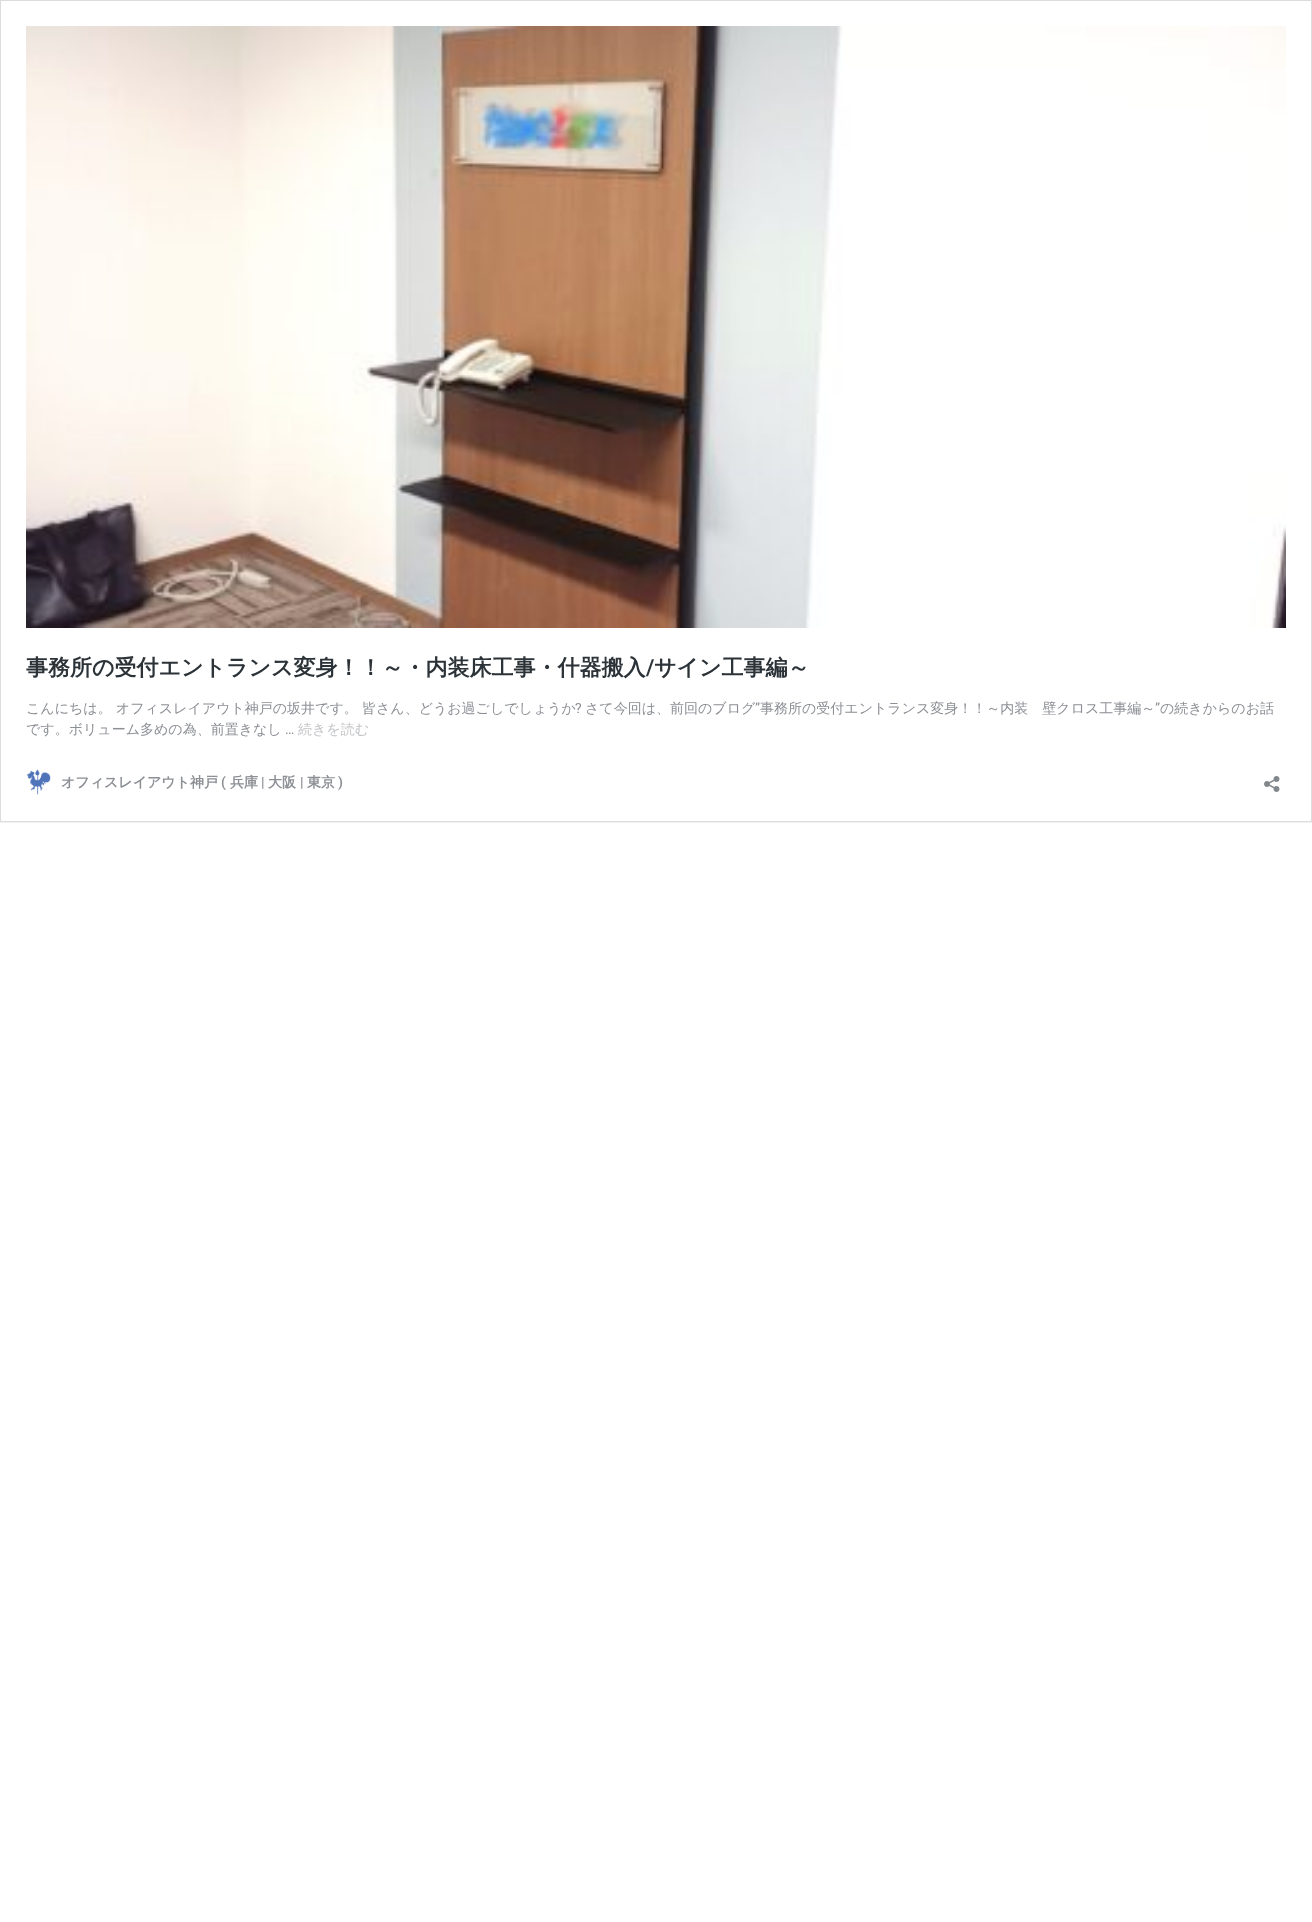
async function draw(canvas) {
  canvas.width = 1312;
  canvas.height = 1922;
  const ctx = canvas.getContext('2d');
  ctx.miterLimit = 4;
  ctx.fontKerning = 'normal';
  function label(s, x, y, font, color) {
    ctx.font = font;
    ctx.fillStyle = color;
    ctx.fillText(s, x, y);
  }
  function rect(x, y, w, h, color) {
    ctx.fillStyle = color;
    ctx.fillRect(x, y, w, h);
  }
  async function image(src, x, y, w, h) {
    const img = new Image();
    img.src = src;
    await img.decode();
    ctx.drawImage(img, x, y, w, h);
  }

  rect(0, 0, 1312, 1922, '#fff');
  ctx.save();
  ctx.beginPath();
  ctx.rect(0, 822, 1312, 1);
  ctx.clip();
  ctx.fillStyle = '#0000000d';
  ctx.filter = 'blur(0.5px)';
  ctx.beginPath();
  ctx.rect(0, 1, 1312, 822);
  ctx.fill();
  ctx.filter = 'none';
  ctx.restore();
  ctx.strokeStyle = '#dcdcde';
  ctx.strokeRect(0.5, 0.5, 1311, 821);
  await image('assets/img1.png', 26, 26, 1260, 602);
  label('事務所の受付エントランス変身！！～・内装床工事・什器搬入', 26, 675, 'bold 22px WenQuanYi Zen Hei', '#2c3338');
  label('/', 646, 675, '600 22px Roboto', '#2c3338');
  label('サイン工事編～', 654, 675, 'bold 22px WenQuanYi Zen Hei', '#2c3338');
  label('こんにちは。 オフィスレイアウト神戸の坂井です。 皆さん、どうお過ごしでしょうか', 26, 713, '500 14px WenQuanYi Zen Hei', '#8c8f94');
  label('?', 575, 713, '14px Roboto', '#8c8f94');
  label('さて今回は、前回のブログ', 585, 713, '500 14px WenQuanYi Zen Hei', '#8c8f94');
  label('”', 755, 713, '14px Roboto', '#8c8f94');
  label('事務所の受付エントランス変身！！～内装　壁クロス工事編～', 760, 713, '500 14px WenQuanYi Zen Hei', '#8c8f94');
  label('”', 1155, 713, '14px Roboto', '#8c8f94');
  label('の続きからのお話', 1160, 713, '500 14px WenQuanYi Zen Hei', '#8c8f94');
  label('です。ボリューム多めの為、前置きなし', 26, 734, '500 14px WenQuanYi Zen Hei', '#8c8f94');
  label('…', 285, 734, '14px Roboto', '#8c8f94');
  label('続きを読む', 298, 734, '500 14px WenQuanYi Zen Hei', '#c3c4c7');
  await image('assets/img2.png', 26, 769, 25, 26);
  label('オフィスレイアウト神戸', 61, 787, 'bold 14px WenQuanYi Zen Hei', '#8c8f94');
  label('(', 221, 787, '600 14px Roboto', '#8c8f94');
  label('兵庫', 230, 787, 'bold 14px WenQuanYi Zen Hei', '#8c8f94');
  label('|', 261, 787, '600 14px Roboto', '#8c8f94');
  label('大阪', 268, 787, 'bold 14px WenQuanYi Zen Hei', '#8c8f94');
  label('|', 300, 787, '600 14px Roboto', '#8c8f94');
  label('東京', 307, 787, 'bold 14px WenQuanYi Zen Hei', '#8c8f94');
  label(')', 338, 787, '600 14px Roboto', '#8c8f94');
  await image('assets/img3.png', 1264, 776, 16, 16);
}

draw(document.querySelector('canvas'));
